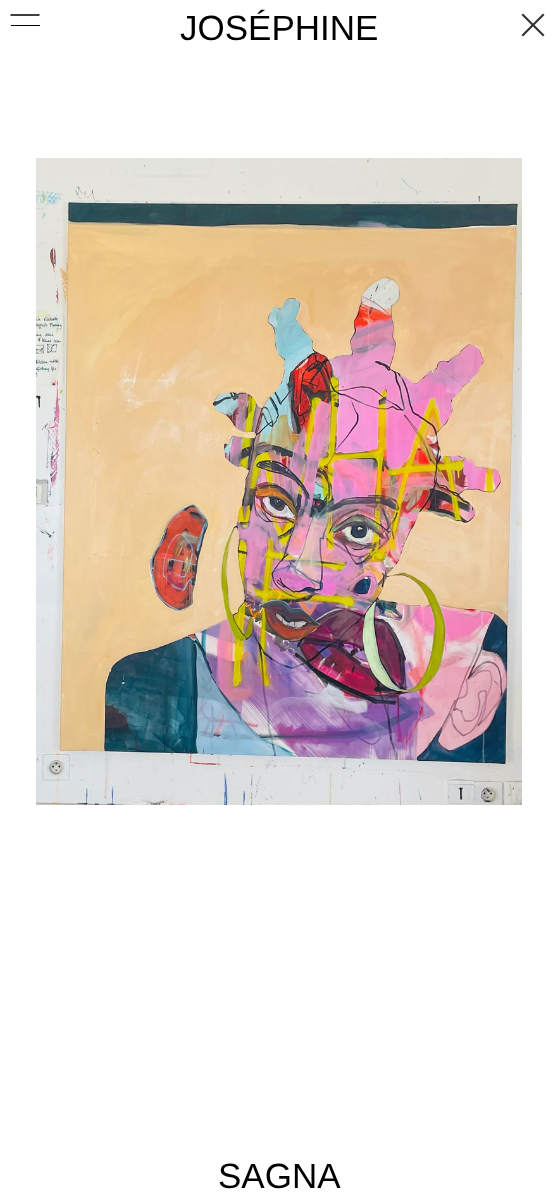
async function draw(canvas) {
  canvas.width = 558;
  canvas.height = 1203;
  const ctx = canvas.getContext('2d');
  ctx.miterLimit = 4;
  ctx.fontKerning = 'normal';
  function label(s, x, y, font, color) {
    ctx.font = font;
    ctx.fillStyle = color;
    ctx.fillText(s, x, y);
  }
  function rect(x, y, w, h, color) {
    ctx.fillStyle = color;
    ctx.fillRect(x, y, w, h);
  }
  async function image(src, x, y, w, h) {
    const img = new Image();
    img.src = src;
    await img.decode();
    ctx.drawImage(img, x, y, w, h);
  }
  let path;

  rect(0, 0, 558, 1203, '#fff');
  path = new Path2D('M10.5 15H39.5M10.5 15H39.5');
  ctx.strokeStyle = '#000';
  ctx.lineWidth = 1.4;
  ctx.stroke(path);
  rect(11, 25, 29, 1, '#000');
  label('JOSÉPHINE', 180, 40, '35px Liberation Sans', '#000');
  ctx.fillStyle = '#333';
  path = new Path2D('M543 13.5L544.5 15L523 36.5L521.5 35Z');
  ctx.fill(path);
  path = new Path2D('M521.5 15L523 13.5L544.5 35L543 36.5Z');
  ctx.fill(path);
  await image('assets/img1.png', 36, 158, 486, 647);
  label('SAGNA', 218, 1188, '35px Liberation Sans', '#000');
}

draw(document.querySelector('canvas'));
